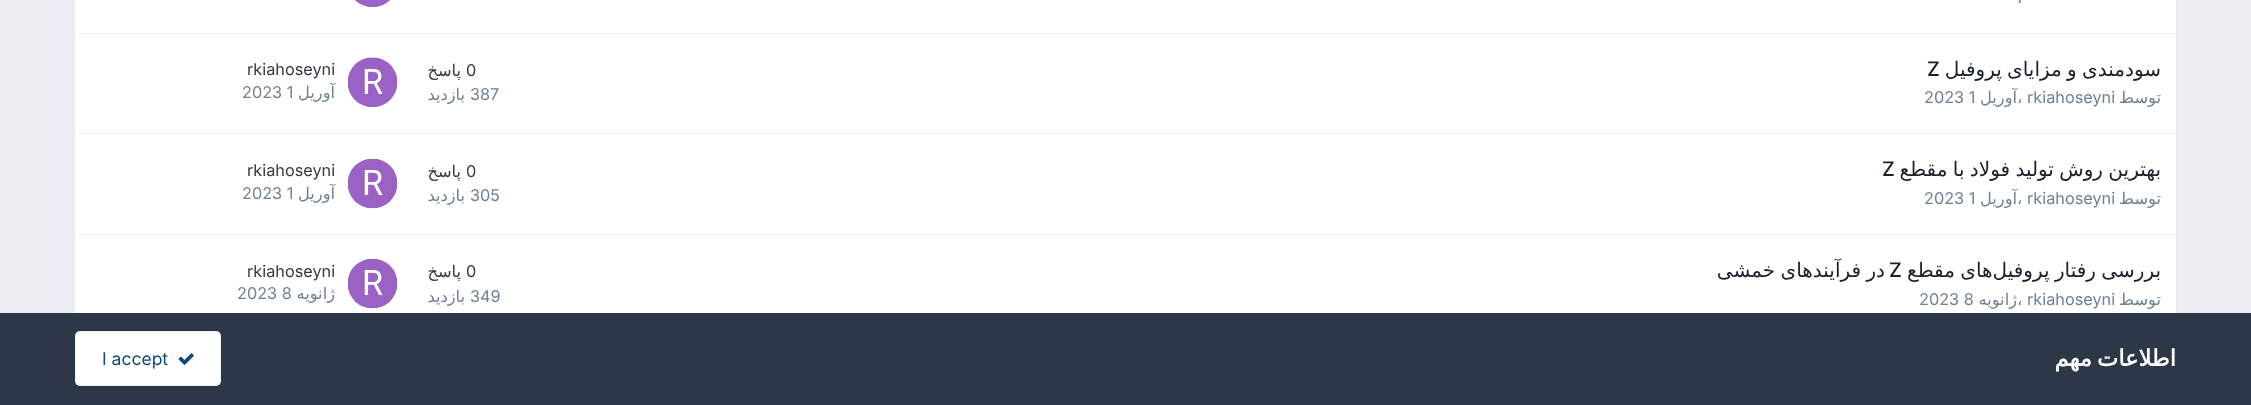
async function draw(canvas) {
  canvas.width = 2251;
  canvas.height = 405;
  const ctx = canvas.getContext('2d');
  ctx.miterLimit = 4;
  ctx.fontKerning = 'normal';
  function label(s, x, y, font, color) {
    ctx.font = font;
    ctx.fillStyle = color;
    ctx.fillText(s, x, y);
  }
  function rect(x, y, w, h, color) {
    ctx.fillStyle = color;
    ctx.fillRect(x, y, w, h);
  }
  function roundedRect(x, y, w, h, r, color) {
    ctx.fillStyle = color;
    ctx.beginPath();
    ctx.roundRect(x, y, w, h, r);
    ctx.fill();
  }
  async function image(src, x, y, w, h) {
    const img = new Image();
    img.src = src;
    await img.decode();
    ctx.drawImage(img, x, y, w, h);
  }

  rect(0, 0, 2251, 405, '#edf0f4');
  ctx.fillStyle = '#2d37481a';
  ctx.filter = 'blur(2.5px)';
  ctx.beginPath();
  ctx.roundRect(76, -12, 2099, 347, 4);
  ctx.fill();
  ctx.filter = 'none';
  rect(75, 0, 2101, 313, '#fff');
  rect(75, 33, 2101, 1, '#f1f2f5');
  label('،', 2017, 3, '16.25px DejaVu Sans', '#718096');
  await image('assets/img1.png', 355, 0, 35, 7);
  rect(75, 133, 2101, 1, '#f1f2f5');
  ctx.wordSpacing = '-1px';
  ctx.direction = 'rtl';
  label('سودمندی و مزایای پروفیل', 2161, 76, '20px DejaVu Sans', '#1a202c');
  ctx.wordSpacing = '0px';
  ctx.direction = 'ltr';
  label('Z', 1927, 76, '500 20px Inter', '#1a202c');
  ctx.direction = 'rtl';
  label('توسط', 2161, 103, '16.25px DejaVu Sans', '#718096');
  ctx.direction = 'ltr';
  label('rkiahoseyni', 2027, 103, '16.25px Inter', '#718096');
  label('،', 2017, 103, '16.25px DejaVu Sans', '#718096');
  ctx.direction = 'rtl';
  label('آوریل', 2017, 103, '16.25px DejaVu Sans', '#718096');
  ctx.direction = 'ltr';
  label('2023 1', 1924, 103, '16.25px Inter', '#718096');
  label('0', 466, 76, '16.25px Inter', '#353c41');
  ctx.direction = 'rtl';
  label('پاسخ', 461, 76, '16.25px DejaVu Sans', '#353c41');
  ctx.direction = 'ltr';
  label('387', 470, 100, '16.25px Inter', '#718096');
  ctx.direction = 'rtl';
  label('بازدید', 465, 100, '16.25px DejaVu Sans', '#718096');
  await image('assets/img2.png', 348, 57, 50, 50);
  ctx.direction = 'ltr';
  label('rkiahoseyni', 247, 75, '16.25px Inter', '#353c41');
  ctx.direction = 'rtl';
  label('آوریل', 335, 98, '16.25px DejaVu Sans', '#718096');
  ctx.direction = 'ltr';
  label('2023 1', 242, 98, '16.25px Inter', '#718096');
  rect(75, 234, 2101, 1, '#f1f2f5');
  ctx.wordSpacing = '-1px';
  ctx.direction = 'rtl';
  label('بهترین روش تولید فولاد با مقطع', 2161, 176, '20px DejaVu Sans', '#1a202c');
  ctx.wordSpacing = '0px';
  ctx.direction = 'ltr';
  label('Z', 1882, 176, '500 20px Inter', '#1a202c');
  ctx.direction = 'rtl';
  label('توسط', 2161, 204, '16.25px DejaVu Sans', '#718096');
  ctx.direction = 'ltr';
  label('rkiahoseyni', 2027, 204, '16.25px Inter', '#718096');
  label('،', 2017, 204, '16.25px DejaVu Sans', '#718096');
  ctx.direction = 'rtl';
  label('آوریل', 2017, 204, '16.25px DejaVu Sans', '#718096');
  ctx.direction = 'ltr';
  label('2023 1', 1924, 204, '16.25px Inter', '#718096');
  label('0', 466, 177, '16.25px Inter', '#353c41');
  ctx.direction = 'rtl';
  label('پاسخ', 461, 177, '16.25px DejaVu Sans', '#353c41');
  ctx.direction = 'ltr';
  label('305', 470, 201, '16.25px Inter', '#718096');
  ctx.direction = 'rtl';
  label('بازدید', 465, 201, '16.25px DejaVu Sans', '#718096');
  await image('assets/img3.png', 348, 159, 50, 50);
  ctx.direction = 'ltr';
  label('rkiahoseyni', 247, 176, '16.25px Inter', '#353c41');
  ctx.direction = 'rtl';
  label('آوریل', 335, 199, '16.25px DejaVu Sans', '#718096');
  ctx.direction = 'ltr';
  label('2023 1', 242, 199, '16.25px Inter', '#718096');
  ctx.wordSpacing = '-1px';
  ctx.direction = 'rtl';
  label('بررسی رفتار پروفیل‌های مقطع', 2161, 277, '20px DejaVu Sans', '#1a202c');
  ctx.wordSpacing = '0px';
  ctx.direction = 'ltr';
  label('Z', 1889, 277, '500 20px Inter', '#1a202c');
  ctx.wordSpacing = '-1px';
  ctx.direction = 'rtl';
  label('در فرآیندهای خمشی', 1885, 277, '20px DejaVu Sans', '#1a202c');
  ctx.wordSpacing = '0px';
  label('توسط', 2161, 305, '16.25px DejaVu Sans', '#718096');
  ctx.direction = 'ltr';
  label('rkiahoseyni', 2027, 305, '16.25px Inter', '#718096');
  label('،', 2017, 305, '16.25px DejaVu Sans', '#718096');
  ctx.direction = 'rtl';
  label('ژانویه', 2017, 305, '16.25px DejaVu Sans', '#718096');
  ctx.direction = 'ltr';
  label('2023 8', 1919, 305, '16.25px Inter', '#718096');
  label('0', 466, 277, '16.25px Inter', '#353c41');
  ctx.direction = 'rtl';
  label('پاسخ', 461, 277, '16.25px DejaVu Sans', '#353c41');
  ctx.direction = 'ltr';
  label('349', 470, 302, '16.25px Inter', '#718096');
  ctx.direction = 'rtl';
  label('بازدید', 465, 302, '16.25px DejaVu Sans', '#718096');
  await image('assets/img4.png', 348, 259, 50, 50);
  ctx.direction = 'ltr';
  label('rkiahoseyni', 247, 277, '16.25px Inter', '#353c41');
  ctx.direction = 'rtl';
  label('ژانویه', 335, 299, '16.25px DejaVu Sans', '#718096');
  ctx.direction = 'ltr';
  label('2023 8', 237, 299, '16.25px Inter', '#718096');
  rect(0, 313, 2251, 92, '#2d3748');
  ctx.wordSpacing = '-2px';
  ctx.direction = 'rtl';
  label('اطلاعات مهم', 2176, 366, 'bold 22.5px DejaVu Sans', '#fff');
  roundedRect(75, 331, 146, 55, 5, '#fff');
  ctx.beginPath();
  ctx.roundRect(75.5, 331.5, 145, 54, 4.5);
  ctx.strokeStyle = '#0e4c7912';
  ctx.stroke();
  await image('assets/img5.png', 178, 353, 16, 12);
  ctx.wordSpacing = '0px';
  ctx.direction = 'ltr';
  label('I accept', 102, 365, '17.5px Inter', '#0e4c79');
}

draw(document.querySelector('canvas'));
